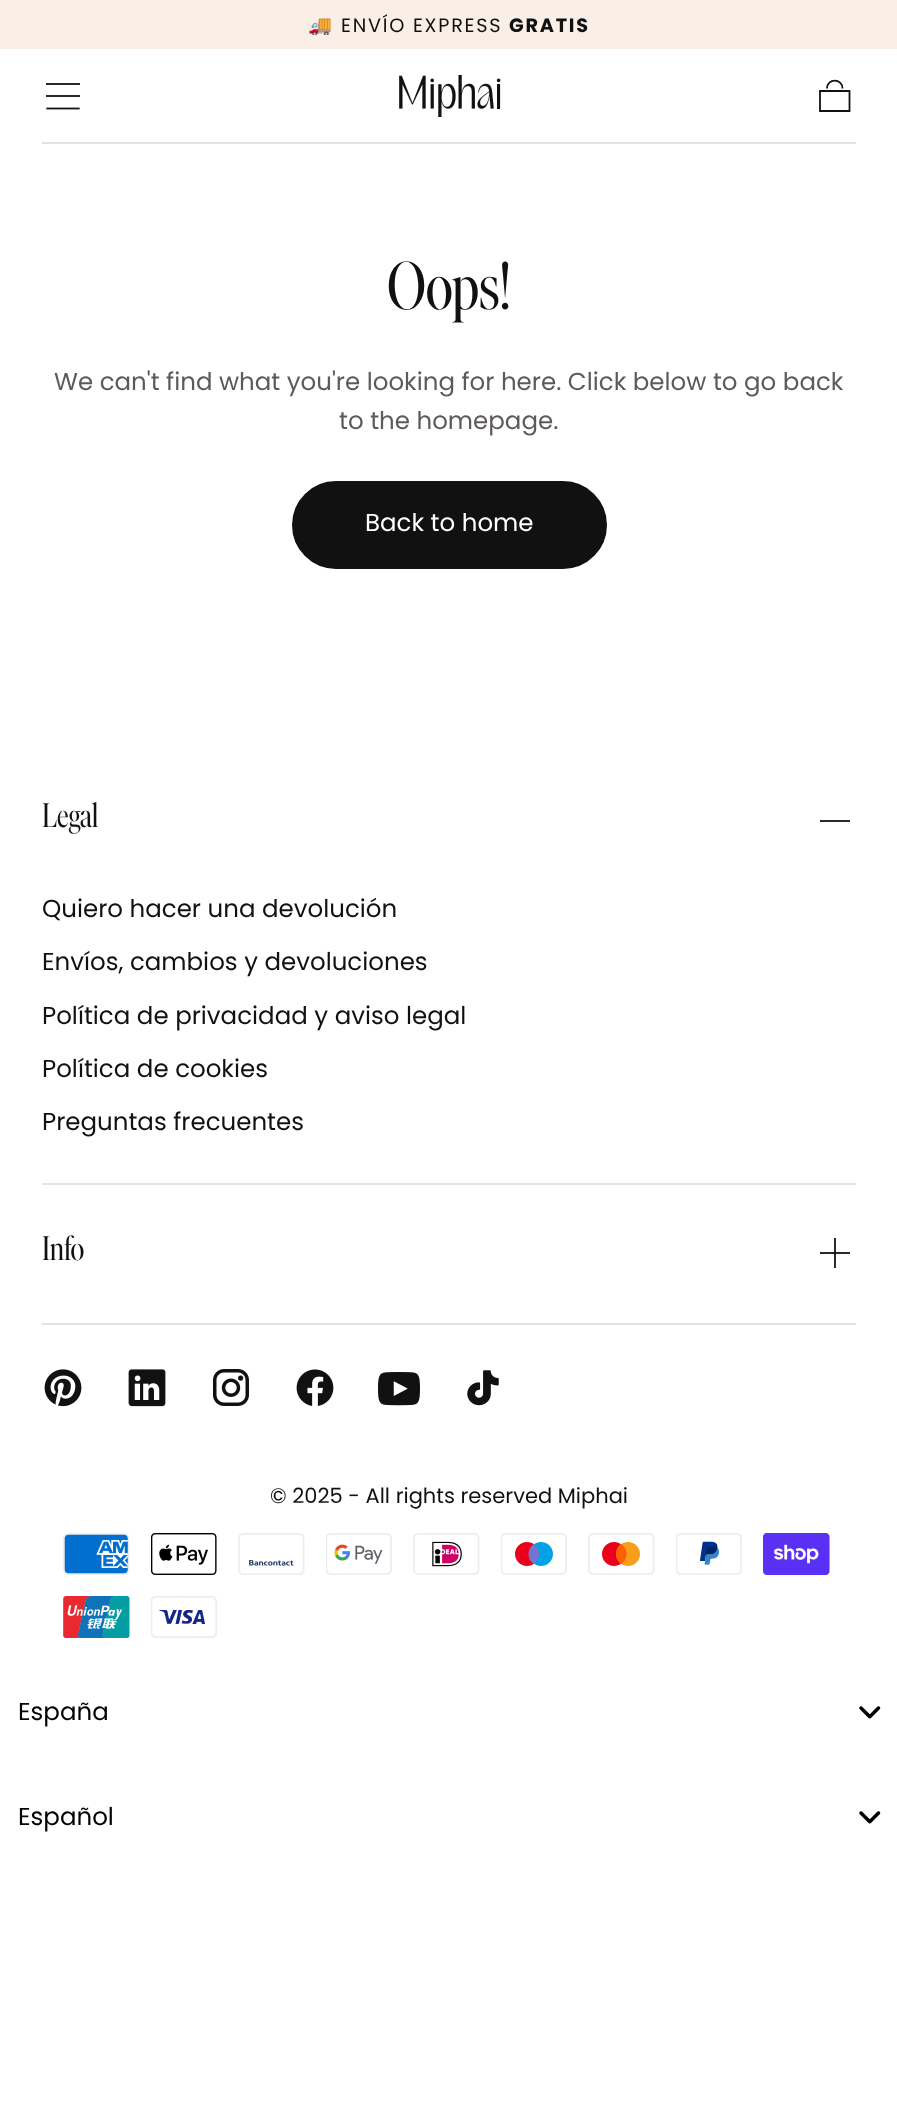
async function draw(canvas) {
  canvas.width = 897;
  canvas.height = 2107;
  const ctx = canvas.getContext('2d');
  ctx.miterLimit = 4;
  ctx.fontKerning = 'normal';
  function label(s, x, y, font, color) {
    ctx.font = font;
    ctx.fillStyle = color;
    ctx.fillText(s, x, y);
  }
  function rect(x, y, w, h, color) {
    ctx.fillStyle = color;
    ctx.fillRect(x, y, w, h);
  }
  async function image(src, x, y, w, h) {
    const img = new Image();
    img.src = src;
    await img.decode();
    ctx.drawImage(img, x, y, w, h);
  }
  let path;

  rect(0, 0, 897, 2107, '#fff');
  rect(820, 1252, 30, 2, '#292929');
  rect(0, 0, 897, 49, '#faefe6');
  ctx.save();
  ctx.beginPath();
  ctx.rect(42, 14, 814, 21);
  ctx.clip();
  ctx.letterSpacing = '1.75px';
  label('🚚', 308, 32, '19.25px Noto Color Emoji', '#111');
  ctx.restore();
  ctx.letterSpacing = '1.75px';
  label('ENVÍO EXPRESS', 341, 32, '19.25px Poppins', '#111');
  label('GRATIS', 509, 32, 'bold 19.25px Poppins', '#111');
  await image('assets/img1.png', 46, 83, 34, 27);
  await image('assets/img2.png', 399, 75, 102, 42);
  path = new Path2D('M849.5 111H820V91H849.5ZM842.5 88.5C842.5 78 827 78 827 88.5');
  ctx.strokeStyle = '#111';
  ctx.lineWidth = 1.8;
  ctx.stroke(path);
  rect(42, 142, 814, 2, '#e6e2e1');
  ctx.letterSpacing = '0px';
  label('Oops!', 387, 309, '67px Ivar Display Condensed', '#111');
  label('We can\'t find what you\'re looking for here. Click below to go back', 54, 390, '24.5px Poppins', '#5e5a59');
  label('to the homepage.', 339, 429, '24.5px Poppins', '#5e5a59');
  ctx.fillStyle = '#111';
  ctx.beginPath();
  ctx.roundRect(293, 482, 313, 86, 43);
  ctx.fill();
  ctx.lineWidth = 2;
  ctx.stroke();
  label('Back to home', 365, 531, '24.5px Poppins', '#fff');
  rect(42, 1183, 814, 2, '#e6e2e1');
  label('Legal', 42, 827, '34px Ivar Display Condensed', '#111');
  rect(820, 820, 30, 2, '#292929');
  label('Quiero hacer una devolución', 42, 917, '24.5px Poppins', '#111');
  label('Envíos, cambios y devoluciones', 42, 970, '24.5px Poppins', '#111');
  label('Política de privacidad y aviso legal', 42, 1024, '24.5px Poppins', '#111');
  label('Política de cookies', 42, 1077, '24.5px Poppins', '#111');
  label('Preguntas frecuentes', 42, 1130, '24.5px Poppins', '#111');
  rect(42, 1323, 814, 2, '#e6e2e1');
  label('Info', 42, 1260, '34px Ivar Display Condensed', '#111');
  rect(834, 1238, 2, 30, '#292929');
  rect(834, 1252, 2, 2, '#131313');
  await image('assets/img3.png', 44, 1369, 38, 38);
  await image('assets/img4.png', 128, 1369, 38, 38);
  await image('assets/img5.png', 213, 1369, 36, 37);
  await image('assets/img6.png', 296, 1369, 38, 37);
  await image('assets/img7.png', 378, 1372, 42, 34);
  await image('assets/img8.png', 467, 1370, 32, 36);
  label('© 2025 - All rights reserved Miphai', 270, 1503, '21px Poppins', '#111');
  await image('assets/img9.png', 63, 1533, 67, 42);
  await image('assets/img10.png', 151, 1533, 66, 42);
  await image('assets/img11.png', 238, 1533, 67, 42);
  await image('assets/img12.png', 326, 1533, 66, 42);
  await image('assets/img13.png', 413, 1533, 67, 42);
  await image('assets/img14.png', 501, 1533, 66, 42);
  await image('assets/img15.png', 588, 1533, 67, 42);
  await image('assets/img16.png', 676, 1533, 66, 42);
  await image('assets/img17.png', 763, 1533, 67, 42);
  await image('assets/img18.png', 63, 1596, 67, 42);
  await image('assets/img19.png', 151, 1596, 66, 42);
  await image('assets/img20.png', 859, 1706, 22, 13);
  label('España', 18, 1720, '24.5px Poppins', '#000');
  await image('assets/img20.png', 859, 1811, 22, 13);
  label('Español', 18, 1825, '24.5px Poppins', '#000');
}

draw(document.querySelector('canvas'));
